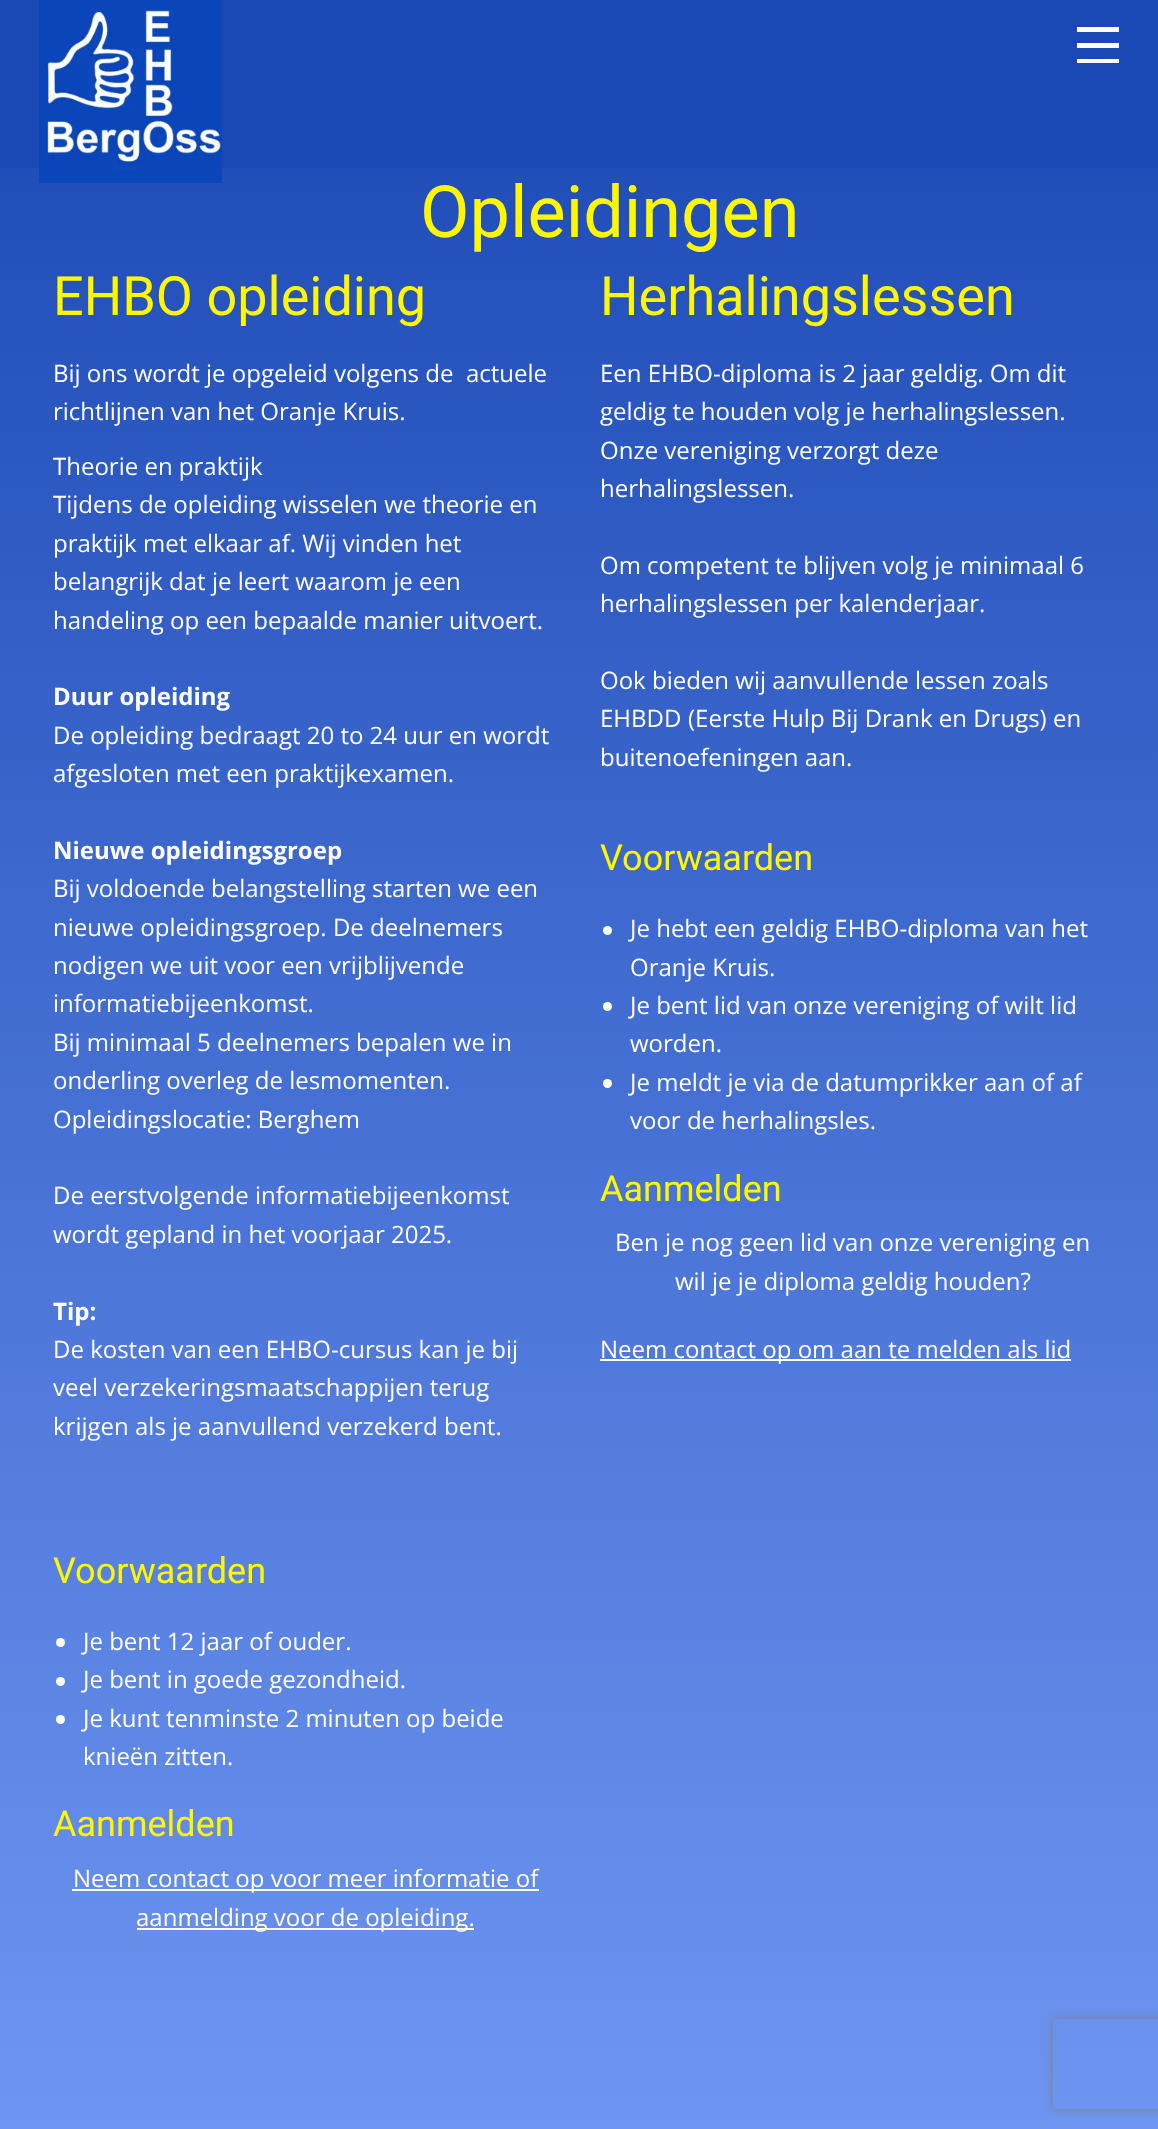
async function draw(canvas) {
  canvas.width = 1158;
  canvas.height = 2129;
  const ctx = canvas.getContext('2d');
  ctx.miterLimit = 4;
  ctx.fontKerning = 'normal';
  function label(s, x, y, font, color) {
    ctx.font = font;
    ctx.fillStyle = color;
    ctx.fillText(s, x, y);
  }
  function rect(x, y, w, h, color) {
    ctx.fillStyle = color;
    ctx.fillRect(x, y, w, h);
  }
  async function image(src, x, y, w, h) {
    const img = new Image();
    img.src = src;
    await img.decode();
    ctx.drawImage(img, x, y, w, h);
  }
  let gradient, path;

  rect(0, 0, 1158, 2129, '#fff');
  gradient = ctx.createLinearGradient(579, 0, 579, 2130);
  gradient.addColorStop(0, '#1a48b4');
  gradient.addColorStop(1, '#6e95f1');
  ctx.fillStyle = gradient;
  ctx.fillRect(0, 168, 1158, 1961);
  rect(0, 0, 1158, 168, '#1a48b4');
  await image('assets/img1.png', 39, 0, 183, 183);
  rect(1077, 27, 42, 5, '#fff');
  rect(1077, 43, 42, 5, '#fff');
  rect(1077, 59, 42, 4, '#fff');
  label('Opleidingen', 420, 237, '72px Roboto', '#fff700');
  label('EHBO opleiding', 53, 315, '54px Roboto', '#fff700');
  label('Bij ons wordt je opgeleid volgens de  actuele', 53, 382, '24px Open Sans', '#fff');
  label('richtlijnen van het Oranje Kruis.', 53, 420, '24px Open Sans', '#fff');
  label('Theorie en praktijk', 53, 475, '24px Open Sans', '#fff');
  label('Tijdens de opleiding wisselen we theorie en', 53, 513, '24px Open Sans', '#fff');
  label('praktijk met elkaar af. Wij vinden het', 53, 552, '24px Open Sans', '#fff');
  label('belangrijk dat je leert waarom je een', 53, 590, '24px Open Sans', '#fff');
  label('handeling op een bepaalde manier uitvoert.', 53, 629, '24px Open Sans', '#fff');
  label('Duur opleiding', 53, 705, 'bold 24px Open Sans', '#fff');
  label('De opleiding bedraagt 20 to 24 uur en wordt', 53, 744, '24px Open Sans', '#fff');
  label('afgesloten met een praktijkexamen.', 53, 782, '24px Open Sans', '#fff');
  label('Nieuwe opleidingsgroep', 53, 859, 'bold 24px Open Sans', '#fff');
  label('Bij voldoende belangstelling starten we een', 53, 897, '24px Open Sans', '#fff');
  label('nieuwe opleidingsgroep. De deelnemers', 53, 936, '24px Open Sans', '#fff');
  label('nodigen we uit voor een vrijblijvende', 53, 974, '24px Open Sans', '#fff');
  label('informatiebijeenkomst.', 53, 1012, '24px Open Sans', '#fff');
  label('Bij minimaal 5 deelnemers bepalen we in', 53, 1051, '24px Open Sans', '#fff');
  label('onderling overleg de lesmomenten.', 53, 1089, '24px Open Sans', '#fff');
  label('Opleidingslocatie: Berghem', 53, 1128, '24px Open Sans', '#fff');
  label('De eerstvolgende informatiebijeenkomst', 53, 1204, '24px Open Sans', '#fff');
  label('wordt gepland in het voorjaar 2025.', 53, 1243, '24px Open Sans', '#fff');
  label('Tip:', 53, 1320, 'bold 24px Open Sans', '#fff');
  label('De kosten van een EHBO-cursus kan je bij', 53, 1358, '24px Open Sans', '#fff');
  label('veel verzekeringsmaatschappijen terug', 53, 1396, '24px Open Sans', '#fff');
  label('krijgen als je aanvullend verzekerd bent.', 53, 1435, '24px Open Sans', '#fff');
  label('Voorwaarden', 53, 1583, '36px Roboto', '#fff700');
  ctx.fillStyle = '#fff';
  ctx.beginPath();
  ctx.arc(60.5, 1642.5, 4.5, 0, 2 * Math.PI);
  ctx.fill();
  label('Je bent 12 jaar of ouder.', 83, 1650, '24px Open Sans', '#fff');
  ctx.beginPath();
  ctx.arc(60.5, 1681.5, 4.5, 0, 2 * Math.PI);
  ctx.fill();
  label('Je bent in goede gezondheid.', 83, 1688, '24px Open Sans', '#fff');
  ctx.beginPath();
  ctx.arc(60.5, 1719.5, 4.5, 0, 2 * Math.PI);
  ctx.fill();
  label('Je kunt tenminste 2 minuten op beide', 83, 1727, '24px Open Sans', '#fff');
  label('knieën zitten.', 83, 1765, '24px Open Sans', '#fff');
  label('Aanmelden', 53, 1836, '36px Roboto', '#fff700');
  rect(72, 1889, 467, 2, '#fffee6');
  label('Neem contact op voor meer informatie of', 73, 1887, '24px Open Sans', '#fffee6');
  rect(137, 1928, 337, 2, '#fffee6');
  label('aanmelding voor de opleiding.', 136, 1926, '24px Open Sans', '#fffee6');
  label('Herhalingslessen', 600, 315, '54px Roboto', '#fff700');
  label('Een EHBO-diploma is 2 jaar geldig. Om dit', 600, 382, '24px Open Sans', '#fff');
  label('geldig te houden volg je herhalingslessen.', 600, 420, '24px Open Sans', '#fff');
  label('Onze vereniging verzorgt deze', 600, 459, '24px Open Sans', '#fff');
  label('herhalingslessen.', 600, 497, '24px Open Sans', '#fff');
  label('Om competent te blijven volg je minimaal 6', 600, 574, '24px Open Sans', '#fff');
  label('herhalingslessen per kalenderjaar.', 600, 612, '24px Open Sans', '#fff');
  label('Ook bieden wij aanvullende lessen zoals', 600, 689, '24px Open Sans', '#fff');
  label('EHBDD', 600, 727, '24px Open Sans', '#fffee6');
  label('(Eerste Hulp Bij Drank en Drugs) en', 688, 727, '24px Open Sans', '#fff');
  label('buitenoefeningen aan.', 600, 766, '24px Open Sans', '#fff');
  label('Voorwaarden', 600, 870, '36px Roboto', '#fff700');
  ctx.fillStyle = '#fff';
  ctx.beginPath();
  ctx.arc(607.5, 930.5, 4.5, 0, 2 * Math.PI);
  ctx.fill();
  label('Je hebt een geldig EHBO-diploma van het', 630, 937, '24px Open Sans', '#fff');
  label('Oranje Kruis.', 630, 976, '24px Open Sans', '#fff');
  ctx.beginPath();
  ctx.arc(607.5, 1006.5, 4.5, 0, 2 * Math.PI);
  ctx.fill();
  label('Je bent lid van onze vereniging of wilt lid', 630, 1014, '24px Open Sans', '#fff');
  label('worden.', 630, 1052, '24px Open Sans', '#fff');
  ctx.beginPath();
  ctx.arc(607.5, 1083.5, 4.5, 0, 2 * Math.PI);
  ctx.fill();
  label('Je meldt je via de datumprikker aan of af', 630, 1091, '24px Open Sans', '#fff');
  label('voor de herhalingsles.', 630, 1129, '24px Open Sans', '#fff');
  label('Aanmelden', 600, 1201, '36px Roboto', '#fff700');
  label('Ben je nog geen lid van onze vereniging en', 615, 1251, '24px Open Sans', '#fff');
  label('wil je je diploma geldig houden?', 675, 1290, '24px Open Sans', '#fff');
  rect(600, 1359, 471, 2, '#fff');
  label('Neem contact op om aan te melden als lid', 600, 1358, '24px Open Sans', '#fff');
  ctx.save();
  path = new Path2D('M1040 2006H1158V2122H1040ZM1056 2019H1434C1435.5 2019 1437 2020.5 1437 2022V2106C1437 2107.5 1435.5 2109 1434 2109H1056C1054.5 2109 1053 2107.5 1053 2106V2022C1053 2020.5 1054.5 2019 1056 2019Z');
  ctx.clip(path, 'evenodd');
  ctx.fillStyle = '#808080';
  ctx.filter = 'blur(4px)';
  ctx.beginPath();
  ctx.roundRect(1053, 2019, 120, 90, 3);
  ctx.fill();
  ctx.filter = 'none';
  ctx.restore();
}

draw(document.querySelector('canvas'));
